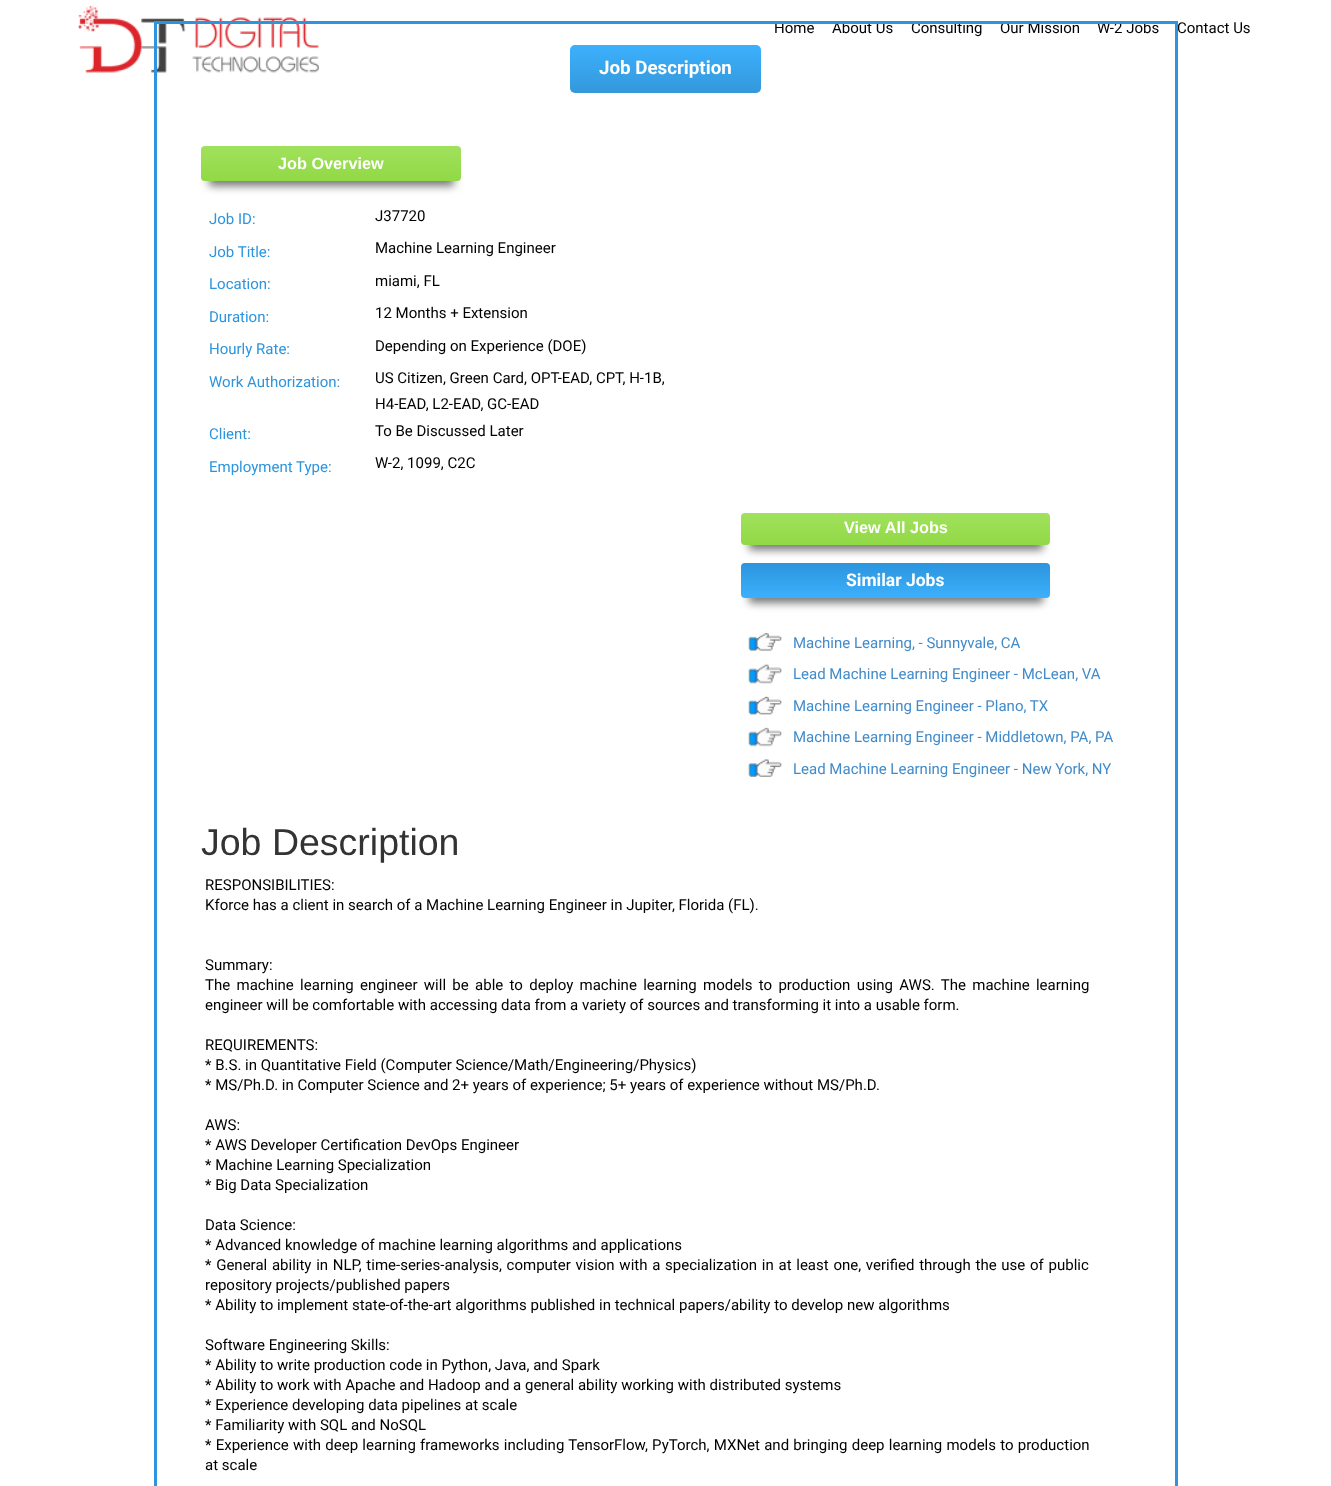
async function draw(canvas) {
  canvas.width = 1331;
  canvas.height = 1486;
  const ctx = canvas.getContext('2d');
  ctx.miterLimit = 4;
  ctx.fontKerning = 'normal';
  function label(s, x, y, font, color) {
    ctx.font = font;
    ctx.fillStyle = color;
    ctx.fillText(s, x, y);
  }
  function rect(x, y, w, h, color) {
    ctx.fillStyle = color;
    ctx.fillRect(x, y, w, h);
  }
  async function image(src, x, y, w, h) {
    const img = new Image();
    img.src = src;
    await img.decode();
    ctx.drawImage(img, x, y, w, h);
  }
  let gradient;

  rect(0, 0, 1331, 1486, '#fff');
  await image('assets/img1.png', 78, 6, 241, 67);
  label('Home', 774, 33, '15px Roboto', '#000');
  label('About Us', 832, 33, '15px Roboto', '#000');
  label('Consulting', 911, 33, '15px Roboto', '#000');
  label('Our Mission', 1000, 33, '15px Roboto', '#000');
  label('W-2 Jobs', 1097, 33, '15px Roboto', '#000');
  label('Contact Us', 1177, 33, '15px Roboto', '#000');
  ctx.strokeStyle = '#2c95dd';
  ctx.lineWidth = 3;
  ctx.strokeRect(155.5, 22.5, 1021, 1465);
  gradient = ctx.createLinearGradient(666, 45, 666, 93);
  gradient.addColorStop(0, '#3cb0fd');
  gradient.addColorStop(1, '#3498db');
  ctx.fillStyle = gradient;
  ctx.beginPath();
  ctx.roundRect(570, 45, 191, 48, 5);
  ctx.fill();
  label('Job Description', 599, 74, 'bold 18.75px Roboto', '#fff');
  ctx.fillStyle = '#777';
  ctx.filter = 'blur(4px)';
  ctx.beginPath();
  ctx.rect(209, 166, 245, 20);
  ctx.fill();
  ctx.filter = 'none';
  gradient = ctx.createLinearGradient(331, 146, 331, 181);
  gradient.addColorStop(0, '#a1e15d');
  gradient.addColorStop(1, '#91d945');
  ctx.fillStyle = gradient;
  ctx.beginPath();
  ctx.roundRect(201, 146, 260, 35, 4);
  ctx.fill();
  label('Job Overview', 278, 169, 'bold 16.25px Liberation Sans', '#fff');
  label('Job ID:', 209, 224, '15px Roboto', '#2c95dd');
  label('J37720', 375, 221, '15px Roboto', '#000');
  label('Job Title:', 209, 257, '15px Roboto', '#2c95dd');
  label('Machine Learning Engineer', 375, 253, '15px Roboto', '#000');
  label('Location:', 209, 289, '15px Roboto', '#2c95dd');
  label('miami, FL', 375, 286, '15px Roboto', '#000');
  label('Duration:', 209, 322, '15px Roboto', '#2c95dd');
  label('12 Months + Extension', 375, 318, '15px Roboto', '#000');
  label('Hourly Rate:', 209, 354, '15px Roboto', '#2c95dd');
  label('Depending on Experience (DOE)', 375, 351, '15px Roboto', '#000');
  label('Work Authorization:', 209, 387, '15px Roboto', '#2c95dd');
  label('US Citizen, Green Card, OPT-EAD, CPT, H-1B,', 375, 383, '15px Roboto', '#000');
  label('H4-EAD, L2-EAD, GC-EAD', 375, 409, '15px Roboto', '#000');
  label('Client:', 209, 439, '15px Roboto', '#2c95dd');
  label('To Be Discussed Later', 375, 436, '15px Roboto', '#000');
  label('Employment Type:', 209, 472, '15px Roboto', '#2c95dd');
  label('W-2, 1099, C2C', 375, 468, '15px Roboto', '#000');
  ctx.fillStyle = '#777';
  ctx.filter = 'blur(4px)';
  ctx.beginPath();
  ctx.rect(749, 533, 294, 17);
  ctx.fill();
  ctx.filter = 'none';
  gradient = ctx.createLinearGradient(896, 513, 896, 545);
  gradient.addColorStop(0, '#a1e15d');
  gradient.addColorStop(1, '#91d945');
  ctx.fillStyle = gradient;
  ctx.beginPath();
  ctx.roundRect(741, 513, 309, 32, 4);
  ctx.fill();
  label('View All Jobs', 844, 533, 'bold 16.25px Liberation Sans', '#fff');
  ctx.fillStyle = '#777';
  ctx.filter = 'blur(4px)';
  ctx.beginPath();
  ctx.rect(749, 583, 294, 20);
  ctx.fill();
  ctx.filter = 'none';
  gradient = ctx.createLinearGradient(896, 563, 896, 598);
  gradient.addColorStop(0, '#2c95dd');
  gradient.addColorStop(1, '#3cb0fd');
  ctx.fillStyle = gradient;
  ctx.beginPath();
  ctx.roundRect(741, 563, 309, 35, 4);
  ctx.fill();
  label('Similar Jobs', 846, 586, 'bold 17.5px Roboto', '#fff');
  await image('assets/img2.png', 748, 633, 34, 18);
  label('Machine Learning, - Sunnyvale, CA', 793, 648, '15px Roboto', '#428bca');
  await image('assets/img3.png', 748, 664, 34, 20);
  label('Lead Machine Learning Engineer - McLean, VA', 793, 679, '15px Roboto', '#428bca');
  await image('assets/img4.png', 748, 696, 34, 19);
  label('Machine Learning Engineer - Plano, TX', 793, 711, '15px Roboto', '#428bca');
  await image('assets/img5.png', 748, 727, 34, 20);
  label('Machine Learning Engineer - Middletown, PA, PA', 793, 742, '15px Roboto', '#428bca');
  await image('assets/img6.png', 748, 759, 34, 18);
  label('Lead Machine Learning Engineer - New York, NY', 793, 774, '15px Roboto', '#428bca');
  label('Job Description', 201, 855, '37.5px Liberation Sans', '#333');
  label('RESPONSIBILITIES:', 205, 890, '15px Roboto', '#000');
  label('Kforce has a client in search of a Machine Learning Engineer in Jupiter, Florida (FL).', 205, 910, '15px Roboto', '#000');
  label('Summary:', 205, 970, '15px Roboto', '#000');
  ctx.wordSpacing = '2.6px';
  label('The machine learning engineer will be able to deploy machine learning models to production using AWS. The machine learning', 205, 990, '15px Roboto', '#000');
  ctx.wordSpacing = '0px';
  label('engineer will be comfortable with accessing data from a variety of sources and transforming it into a usable form.', 205, 1010, '15px Roboto', '#000');
  label('REQUIREMENTS:', 205, 1050, '15px Roboto', '#000');
  label('* B.S. in Quantitative Field (Computer Science/Math/Engineering/Physics)', 205, 1070, '15px Roboto', '#000');
  label('* MS/Ph.D. in Computer Science and 2+ years of experience; 5+ years of experience without MS/Ph.D.', 205, 1090, '15px Roboto', '#000');
  label('AWS:', 205, 1130, '15px Roboto', '#000');
  label('* AWS Developer Certification DevOps Engineer', 205, 1150, '15px Roboto', '#000');
  label('* Machine Learning Specialization', 205, 1170, '15px Roboto', '#000');
  label('* Big Data Specialization', 205, 1190, '15px Roboto', '#000');
  label('Data Science:', 205, 1230, '15px Roboto', '#000');
  label('* Advanced knowledge of machine learning algorithms and applications', 205, 1250, '15px Roboto', '#000');
  ctx.wordSpacing = '1px';
  label('* General ability in NLP, time-series-analysis, computer vision with a specialization in at least one, verified through the use of public', 205, 1270, '15px Roboto', '#000');
  ctx.wordSpacing = '0px';
  label('repository projects/published papers', 205, 1290, '15px Roboto', '#000');
  label('* Ability to implement state-of-the-art algorithms published in technical papers/ability to develop new algorithms', 205, 1310, '15px Roboto', '#000');
  label('Software Engineering Skills:', 205, 1350, '15px Roboto', '#000');
  label('* Ability to write production code in Python, Java, and Spark', 205, 1370, '15px Roboto', '#000');
  label('* Ability to work with Apache and Hadoop and a general ability working with distributed systems', 205, 1390, '15px Roboto', '#000');
  label('* Experience developing data pipelines at scale', 205, 1410, '15px Roboto', '#000');
  label('* Familiarity with SQL and NoSQL', 205, 1430, '15px Roboto', '#000');
  ctx.wordSpacing = '0.5px';
  label('* Experience with deep learning frameworks including TensorFlow, PyTorch, MXNet and bringing deep learning models to production', 205, 1450, '15px Roboto', '#000');
  ctx.wordSpacing = '0px';
  label('at scale', 205, 1470, '15px Roboto', '#000');
}

draw(document.querySelector('canvas'));
